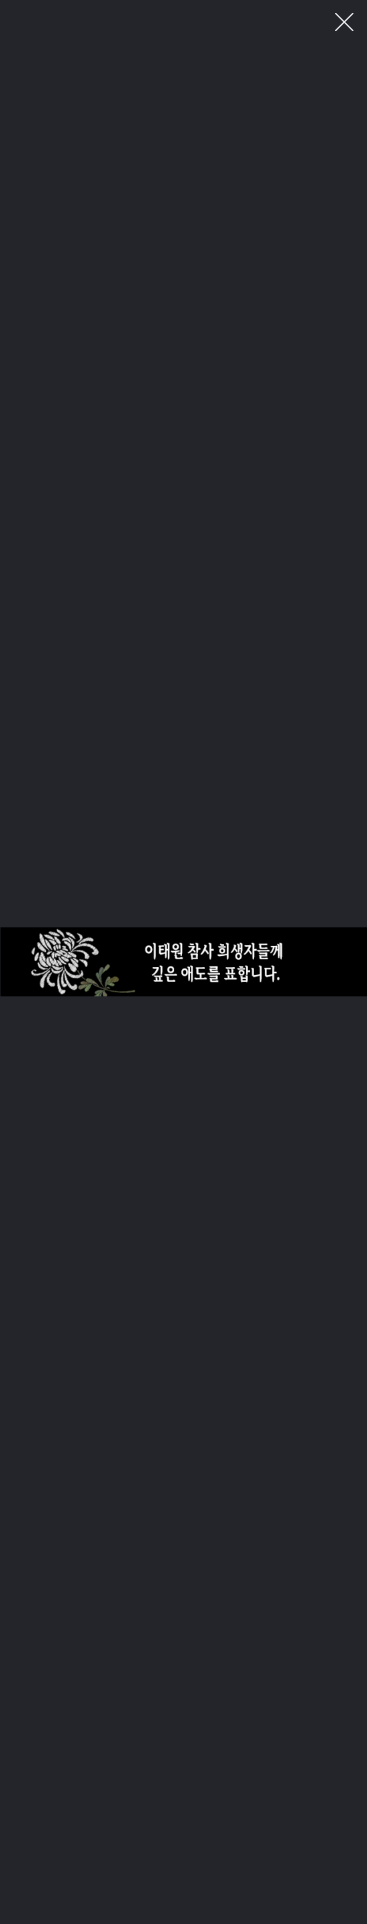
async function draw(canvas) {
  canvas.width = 367;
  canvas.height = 1924;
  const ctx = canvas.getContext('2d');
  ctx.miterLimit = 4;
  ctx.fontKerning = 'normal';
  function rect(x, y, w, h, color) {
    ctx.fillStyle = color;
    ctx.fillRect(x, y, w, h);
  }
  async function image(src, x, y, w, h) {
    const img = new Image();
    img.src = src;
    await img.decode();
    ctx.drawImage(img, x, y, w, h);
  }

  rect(0, 0, 367, 1924, '#23252b');
  await image('assets/img1.png', 335, 13, 19, 18);
  await image('assets/img2.png', 0, 927, 367, 70);
}

draw(document.querySelector('canvas'));
